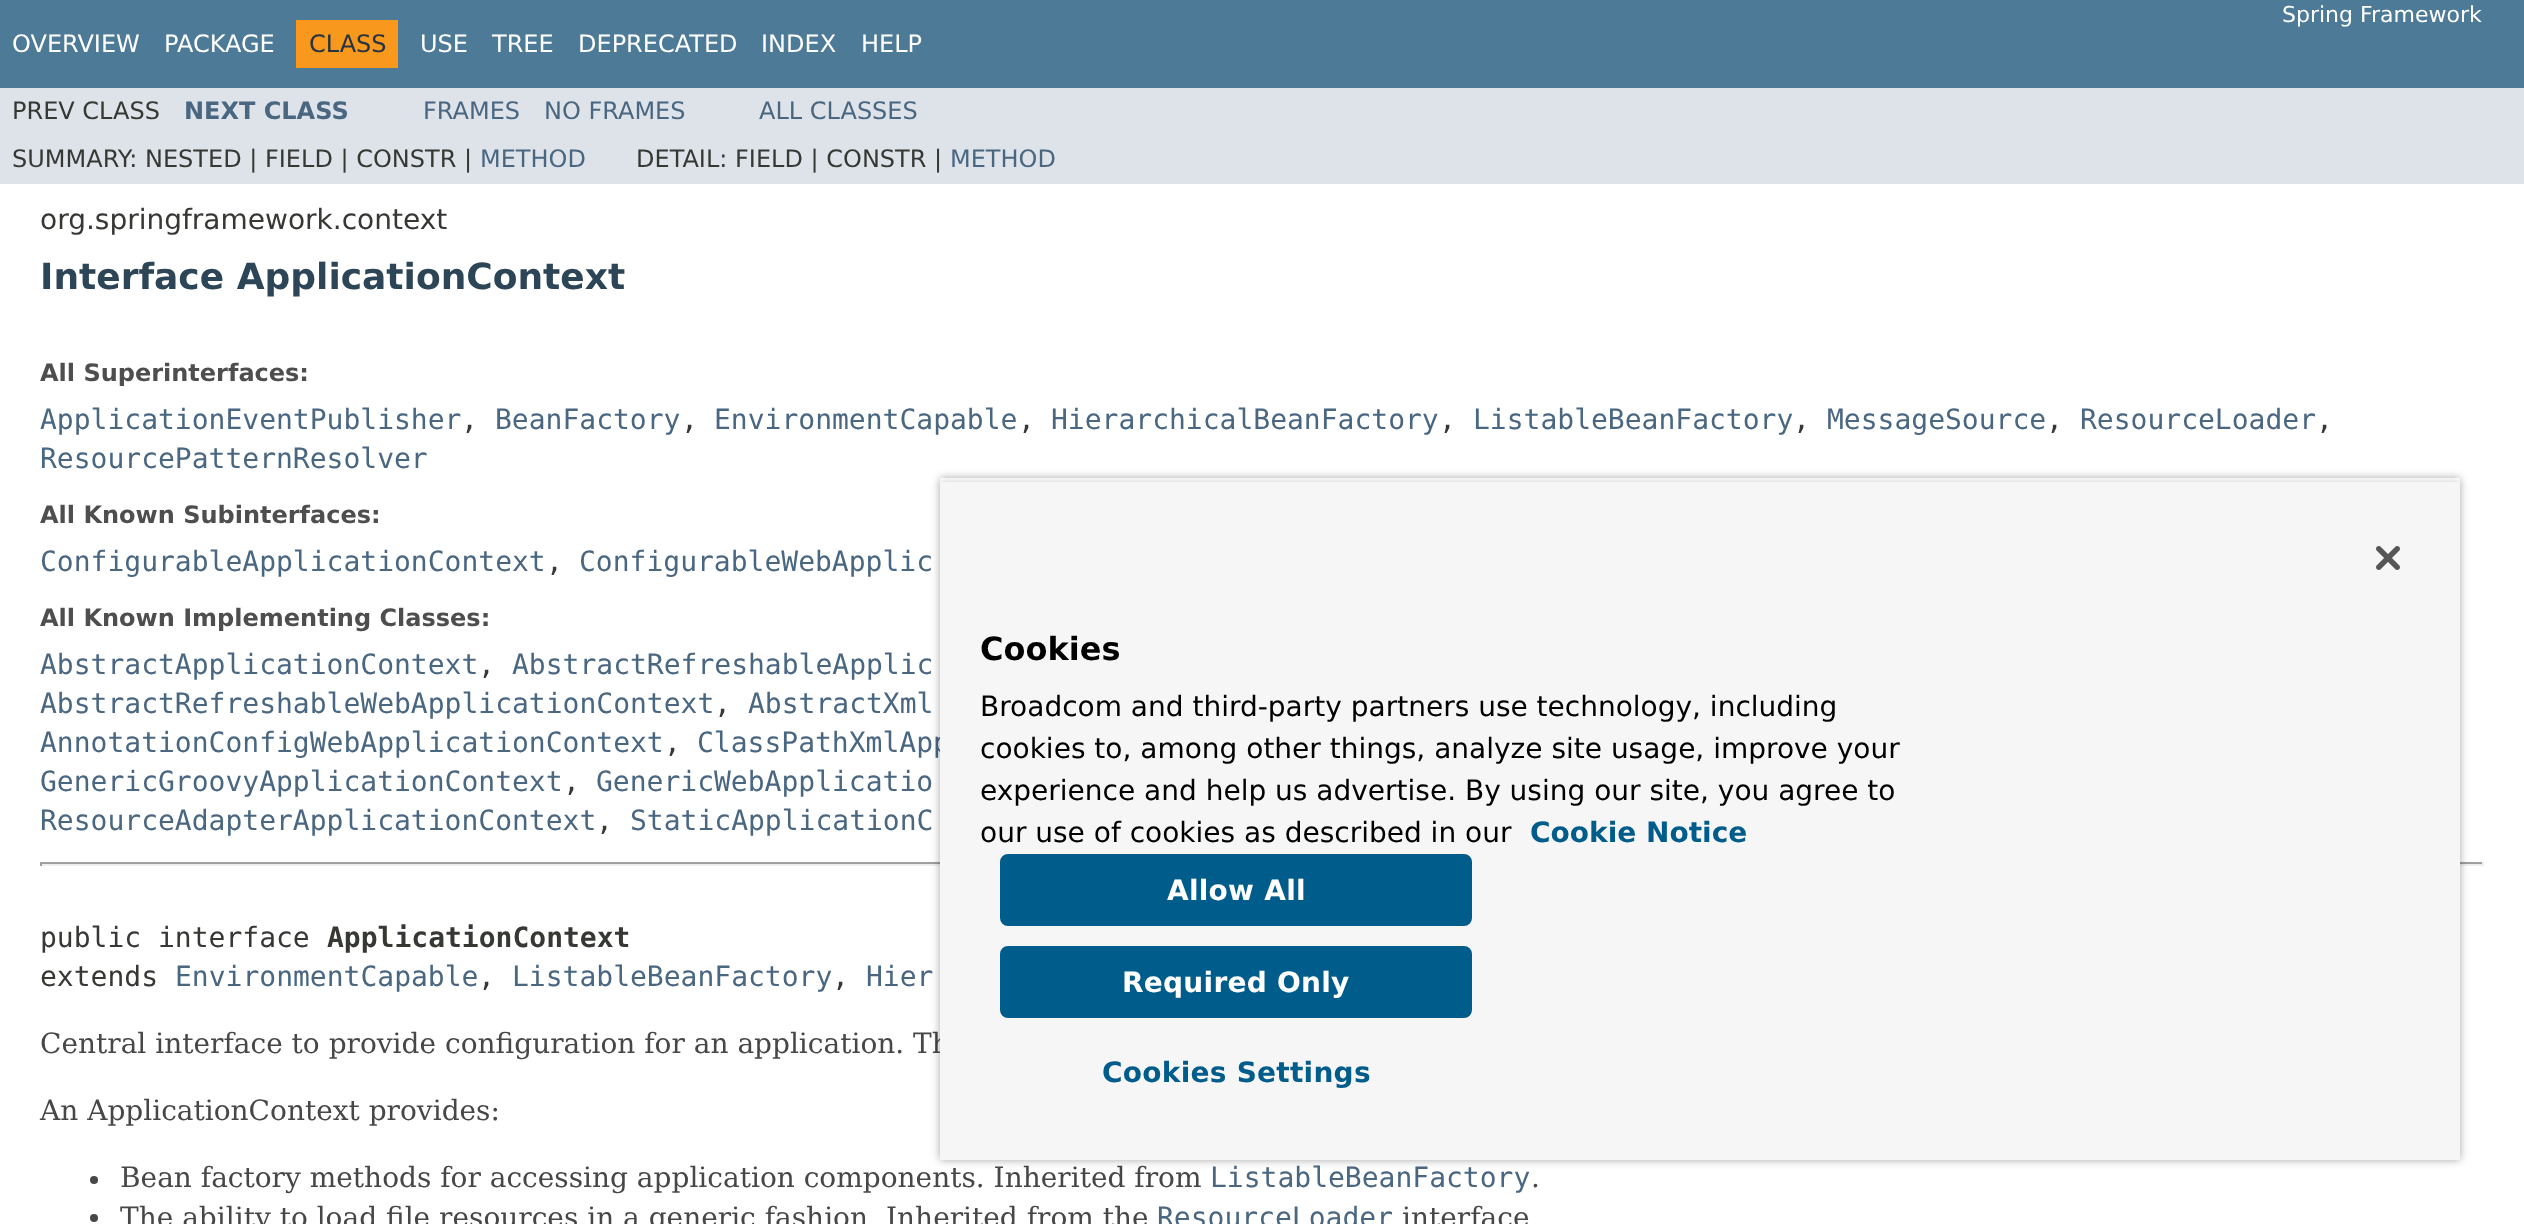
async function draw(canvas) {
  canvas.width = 2524;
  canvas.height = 1224;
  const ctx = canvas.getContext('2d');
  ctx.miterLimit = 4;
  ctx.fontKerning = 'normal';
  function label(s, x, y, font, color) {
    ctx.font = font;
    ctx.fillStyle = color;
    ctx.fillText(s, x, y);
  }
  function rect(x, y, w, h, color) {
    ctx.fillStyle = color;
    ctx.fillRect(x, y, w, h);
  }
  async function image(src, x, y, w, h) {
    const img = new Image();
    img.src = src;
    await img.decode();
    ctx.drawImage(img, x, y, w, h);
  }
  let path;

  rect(0, 0, 2524, 1224, '#fff');
  rect(0, 0, 2524, 88, '#4d7a97');
  label('Spring Framework', 2282, 22, '22px DejaVu Sans', '#fff');
  label('OVERVIEW', 12, 52, '24px DejaVu Sans', '#fff');
  label('PACKAGE', 164, 52, '24px DejaVu Sans', '#fff');
  rect(296, 20, 102, 48, '#f8981d');
  label('CLASS', 309, 52, '24px DejaVu Sans', '#253441');
  label('USE', 420, 52, '24px DejaVu Sans', '#fff');
  label('TREE', 492, 52, '24px DejaVu Sans', '#fff');
  label('DEPRECATED', 578, 52, '24px DejaVu Sans', '#fff');
  label('INDEX', 761, 52, '24px DejaVu Sans', '#fff');
  label('HELP', 861, 52, '24px DejaVu Sans', '#fff');
  rect(0, 88, 2524, 96, '#dee3e9');
  label('PREV CLASS', 12, 119, '24px DejaVu Sans', '#353833');
  label('NEXT CLASS', 184, 119, 'bold 24px DejaVu Sans', '#4a6782');
  label('FRAMES', 423, 119, '24px DejaVu Sans', '#4a6782');
  label('NO FRAMES', 544, 119, '24px DejaVu Sans', '#4a6782');
  label('ALL CLASSES', 759, 119, '24px DejaVu Sans', '#4a6782');
  label('SUMMARY: NESTED | FIELD | CONSTR |', 12, 167, '24px DejaVu Sans', '#353833');
  label('METHOD', 480, 167, '24px DejaVu Sans', '#4a6782');
  label('DETAIL: FIELD | CONSTR |', 636, 167, '24px DejaVu Sans', '#353833');
  label('METHOD', 950, 167, '24px DejaVu Sans', '#4a6782');
  label('org.springframework.context', 40, 229, '28px DejaVu Sans', '#353833');
  label('Interface ApplicationContext', 40, 289, 'bold 36px DejaVu Sans', '#2c4557');
  label('All Superinterfaces:', 40, 381, 'bold 24px DejaVu Sans', '#4e4e4e');
  label('ApplicationEventPublisher', 40, 429, '28px DejaVu Sans Mono', '#4a6782');
  label(',', 461, 429, '28px DejaVu Sans Mono', '#353833');
  label('BeanFactory', 495, 429, '28px DejaVu Sans Mono', '#4a6782');
  label(',', 681, 429, '28px DejaVu Sans Mono', '#353833');
  label('EnvironmentCapable', 714, 429, '28px DejaVu Sans Mono', '#4a6782');
  label(',', 1018, 429, '28px DejaVu Sans Mono', '#353833');
  label('HierarchicalBeanFactory', 1051, 429, '28px DejaVu Sans Mono', '#4a6782');
  label(',', 1439, 429, '28px DejaVu Sans Mono', '#353833');
  label('ListableBeanFactory', 1473, 429, '28px DejaVu Sans Mono', '#4a6782');
  label(',', 1793, 429, '28px DejaVu Sans Mono', '#353833');
  label('MessageSource', 1827, 429, '28px DejaVu Sans Mono', '#4a6782');
  label(',', 2046, 429, '28px DejaVu Sans Mono', '#353833');
  label('ResourceLoader', 2080, 429, '28px DejaVu Sans Mono', '#4a6782');
  label(',', 2316, 429, '28px DejaVu Sans Mono', '#353833');
  label('ResourcePatternResolver', 40, 468, '28px DejaVu Sans Mono', '#4a6782');
  label('All Known Subinterfaces:', 40, 523, 'bold 24px DejaVu Sans', '#4e4e4e');
  label('ConfigurableApplicationContext', 40, 571, '28px DejaVu Sans Mono', '#4a6782');
  label(',', 546, 571, '28px DejaVu Sans Mono', '#353833');
  label('ConfigurableWebApplic', 579, 571, '28px DejaVu Sans Mono', '#4a6782');
  label('All Known Implementing Classes:', 40, 626, 'bold 24px DejaVu Sans', '#4e4e4e');
  label('AbstractApplicationContext', 40, 674, '28px DejaVu Sans Mono', '#4a6782');
  label(',', 478, 674, '28px DejaVu Sans Mono', '#353833');
  label('AbstractRefreshableApplic', 512, 674, '28px DejaVu Sans Mono', '#4a6782');
  label('AbstractRefreshableWebApplicationContext', 40, 713, '28px DejaVu Sans Mono', '#4a6782');
  label(',', 714, 713, '28px DejaVu Sans Mono', '#353833');
  label('AbstractXml', 748, 713, '28px DejaVu Sans Mono', '#4a6782');
  label('AnnotationConfigWebApplicationContext', 40, 752, '28px DejaVu Sans Mono', '#4a6782');
  label(',', 664, 752, '28px DejaVu Sans Mono', '#353833');
  label('ClassPathXmlApp', 697, 752, '28px DejaVu Sans Mono', '#4a6782');
  label('GenericGroovyApplicationContext', 40, 791, '28px DejaVu Sans Mono', '#4a6782');
  label(',', 563, 791, '28px DejaVu Sans Mono', '#353833');
  label('GenericWebApplicatio', 596, 791, '28px DejaVu Sans Mono', '#4a6782');
  label('ResourceAdapterApplicationContext', 40, 830, '28px DejaVu Sans Mono', '#4a6782');
  label(',', 596, 830, '28px DejaVu Sans Mono', '#353833');
  label('StaticApplicationC', 630, 830, '28px DejaVu Sans Mono', '#4a6782');
  rect(40, 862, 2444, 2, '#9f9f9f');
  rect(2482, 862, 2, 4, '#eee');
  rect(40, 864, 2444, 2, '#eee');
  rect(40, 862, 2, 4, '#9f9f9f');
  label('public interface', 40, 947, '28px DejaVu Sans Mono', '#353833');
  label('ApplicationContext', 327, 947, 'bold 28px DejaVu Sans Mono', '#353833');
  label('extends', 40, 986, '28px DejaVu Sans Mono', '#353833');
  label('EnvironmentCapable', 175, 986, '28px DejaVu Sans Mono', '#4a6782');
  label(',', 478, 986, '28px DejaVu Sans Mono', '#353833');
  label('ListableBeanFactory', 512, 986, '28px DejaVu Sans Mono', '#4a6782');
  label(',', 832, 986, '28px DejaVu Sans Mono', '#353833');
  label('Hier', 866, 986, '28px DejaVu Sans Mono', '#4a6782');
  label('Central interface to provide configuration for an application. Th', 40, 1053, '28px DejaVu Serif', '#474747');
  label('An ApplicationContext provides:', 40, 1120, '28px DejaVu Serif', '#474747');
  ctx.beginPath();
  ctx.arc(94, 1180, 4, 0, 2 * Math.PI);
  ctx.fill();
  label('Bean factory methods for accessing application components. Inherited from', 120, 1187, '28px DejaVu Serif', '#474747');
  label('ListableBeanFactory', 1210, 1187, '28px DejaVu Sans Mono', '#4a6782');
  label('.', 1531, 1187, '28px DejaVu Serif', '#474747');
  ctx.beginPath();
  ctx.arc(94, 1218, 4, 0, 2 * Math.PI);
  ctx.fill();
  label('The ability to load file resources in a generic fashion', 120, 1227, '28px DejaVu Serif', '#474747');
  label('Inherited from the', 886, 1227, '28px DejaVu Serif', '#474747');
  label('ResourceLoader', 1157, 1227, '28px DejaVu Sans Mono', '#4a6782');
  label('interface', 1402, 1227, '28px DejaVu Serif', '#474747');
  ctx.save();
  path = new Path2D('M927 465H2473V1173H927ZM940 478H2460V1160H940Z');
  ctx.clip(path, 'evenodd');
  ctx.fillStyle = '#00000059';
  ctx.filter = 'blur(4px)';
  ctx.beginPath();
  ctx.rect(940, 478, 1520, 682);
  ctx.fill();
  ctx.filter = 'none';
  ctx.restore();
  ctx.save();
  ctx.beginPath();
  ctx.rect(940, 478, 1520, 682);
  ctx.clip();
  ctx.fillStyle = '#00000033';
  ctx.filter = 'blur(4px)';
  ctx.beginPath();
  ctx.rect(940, 482, 1520, 678);
  ctx.fill();
  ctx.filter = 'none';
  ctx.restore();
  rect(940, 482, 1520, 678, '#f6f6f6');
  await image('assets/img1.png', 2376, 546, 24, 24);
  label('Cookies', 980, 660, 'bold 32px DejaVu Sans', '#000');
  label('Broadcom and third-party partners use technology, including', 980, 716, '28px DejaVu Sans', '#000');
  label('cookies to, among other things, analyze site usage, improve your', 980, 758, '28px DejaVu Sans', '#000');
  label('experience and help us advertise. By using our site, you agree to', 980, 800, '28px DejaVu Sans', '#000');
  label('our use of cookies as described in our', 980, 842, '28px DejaVu Sans', '#000');
  label('Cookie Notice', 1530, 842, 'bold 28px DejaVu Sans', '#005c8a');
  ctx.beginPath();
  ctx.roundRect(1001, 855, 470, 70, 7);
  ctx.fill();
  ctx.strokeStyle = '#005c8a';
  ctx.lineWidth = 2;
  ctx.stroke();
  ctx.letterSpacing = '0.25px';
  label('Allow All', 1167, 900, 'bold 28px DejaVu Sans', '#fff');
  ctx.fillStyle = '#005c8a';
  ctx.beginPath();
  ctx.roundRect(1001, 947, 470, 70, 7);
  ctx.fill();
  ctx.stroke();
  label('Required Only', 1122, 992, 'bold 28px DejaVu Sans', '#fff');
  label('Cookies Settings', 1102, 1082, 'bold 28px DejaVu Sans', '#005c8a');
}

draw(document.querySelector('canvas'));
